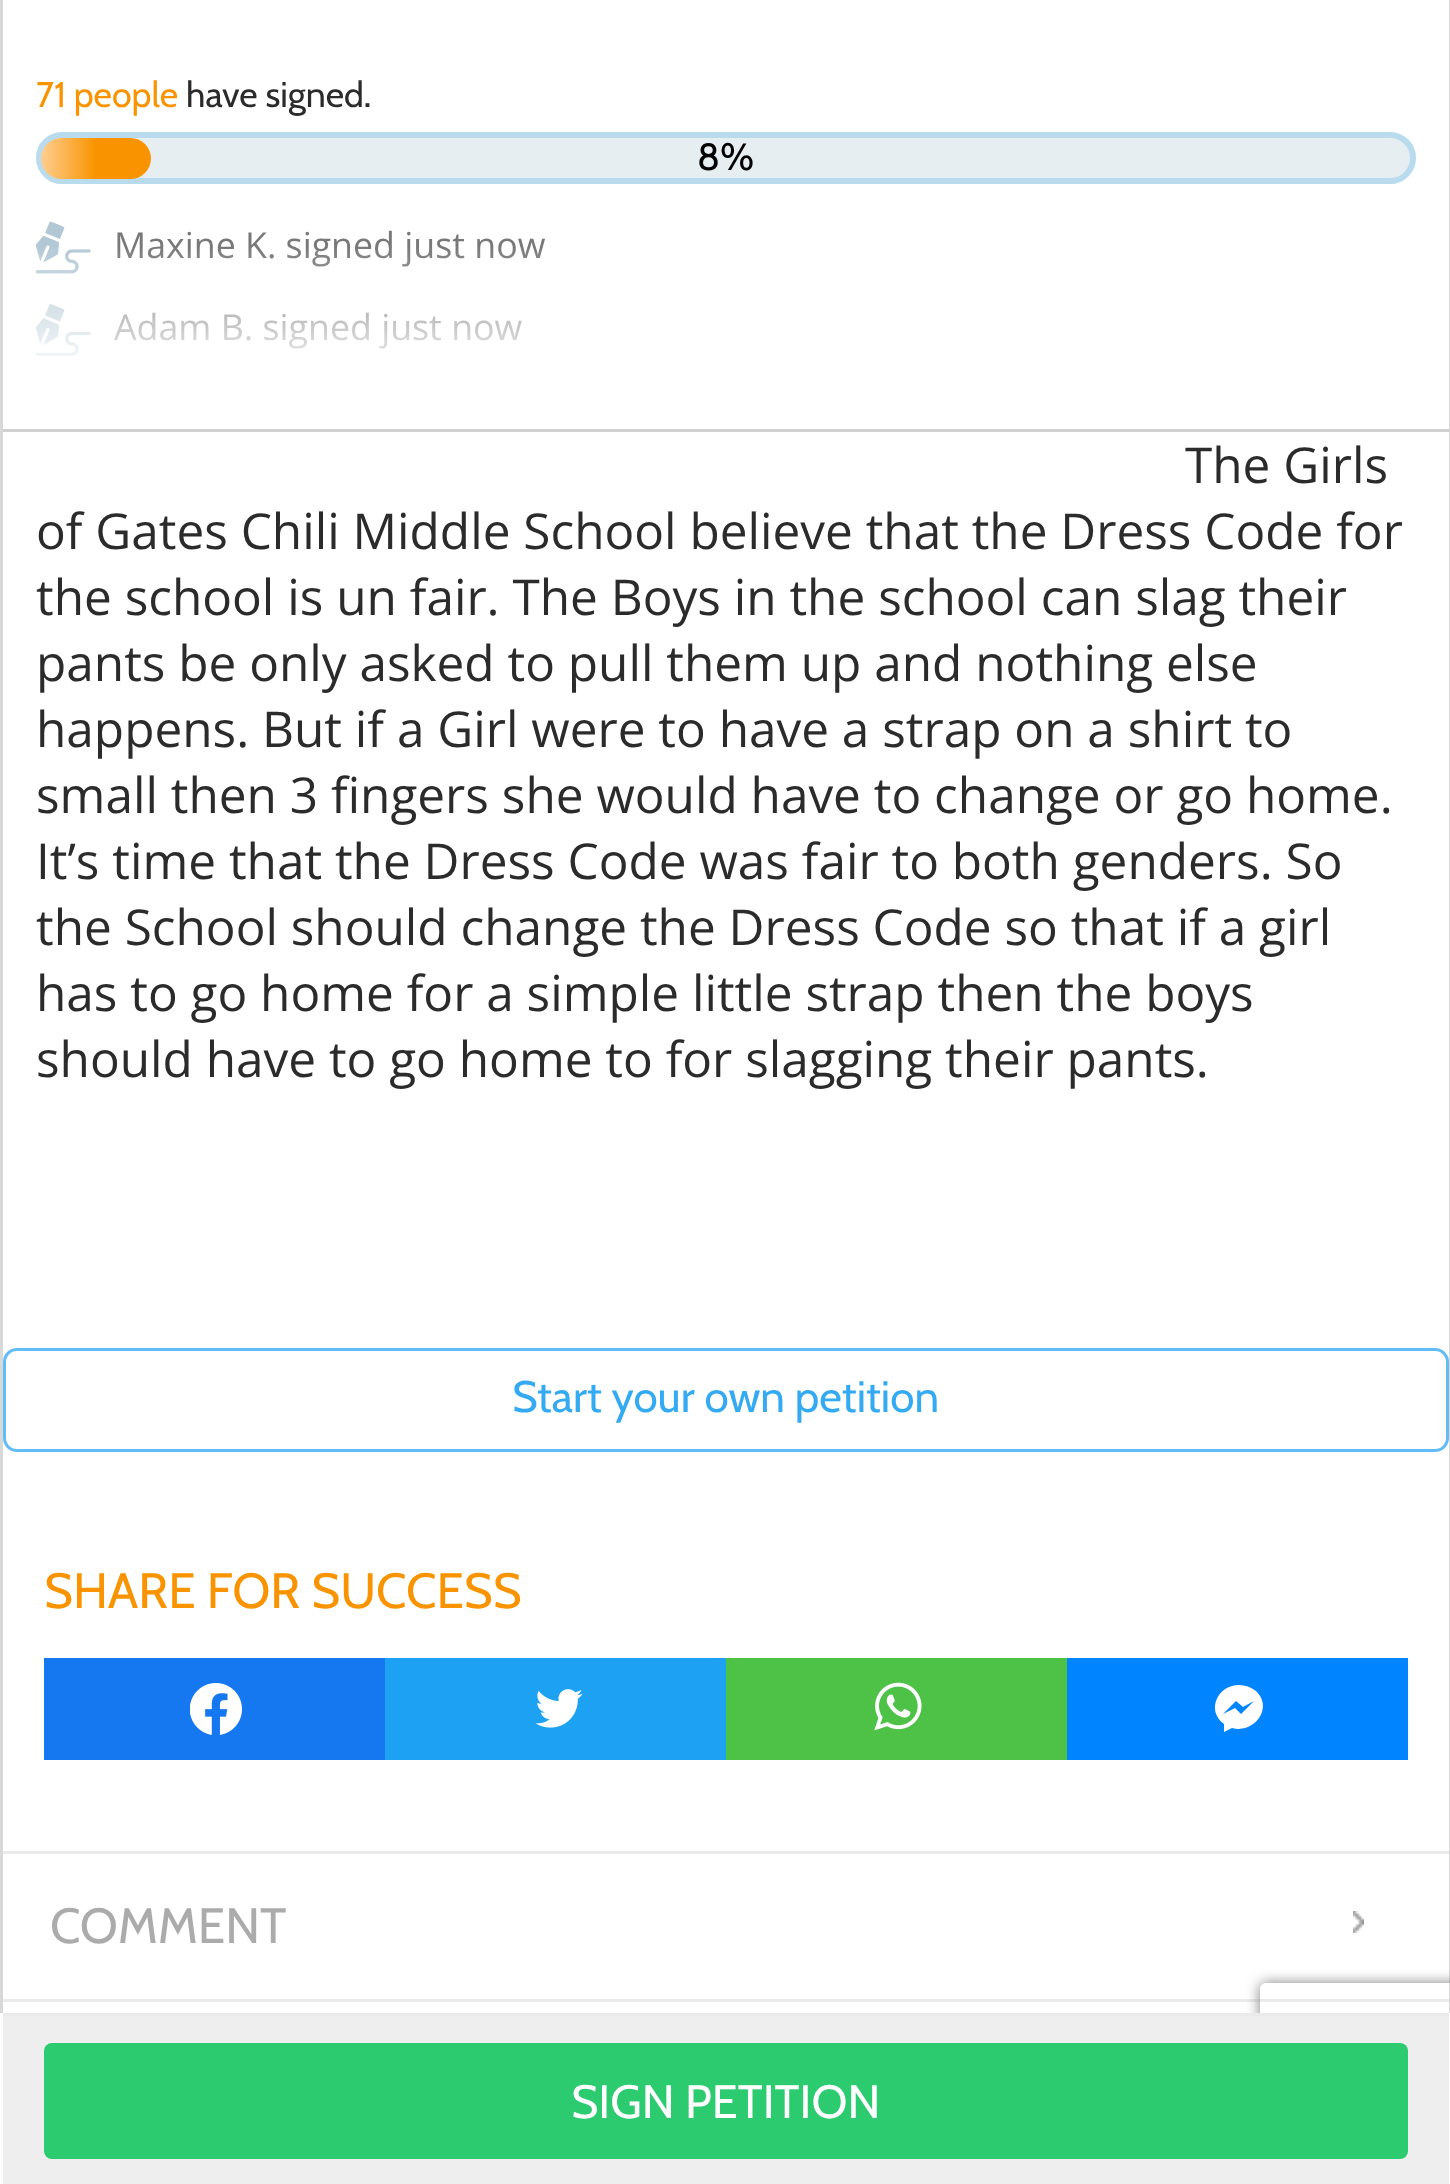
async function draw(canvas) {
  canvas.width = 1450;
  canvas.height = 2184;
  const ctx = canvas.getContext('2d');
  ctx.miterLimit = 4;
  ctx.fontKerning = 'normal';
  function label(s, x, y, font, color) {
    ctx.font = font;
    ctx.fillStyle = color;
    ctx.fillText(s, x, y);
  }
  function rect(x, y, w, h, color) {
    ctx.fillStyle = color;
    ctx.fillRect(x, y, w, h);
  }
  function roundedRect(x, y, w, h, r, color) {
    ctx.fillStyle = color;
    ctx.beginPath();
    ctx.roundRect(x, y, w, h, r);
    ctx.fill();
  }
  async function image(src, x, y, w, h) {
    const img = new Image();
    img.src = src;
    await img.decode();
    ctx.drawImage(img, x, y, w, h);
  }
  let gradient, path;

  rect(0, 0, 1450, 2184, '#fff');
  ctx.strokeStyle = '#d8d8d8';
  ctx.lineWidth = 3;
  ctx.strokeRect(1.5, -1.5, 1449, 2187);
  rect(3, 429, 1446, 3, '#d0d0d0');
  label('71 people', 36, 107, '35.75px Cabin', '#f99400');
  label('have signed.', 186, 107, '35.75px Cabin', '#2b2b2b');
  ctx.fillStyle = '#e6eef2';
  ctx.beginPath();
  ctx.roundRect(39, 135, 1374, 46, 23);
  ctx.fill();
  ctx.strokeStyle = '#b8dcee';
  ctx.lineWidth = 6;
  ctx.stroke();
  gradient = ctx.createLinearGradient(41, 158, 151, 158);
  gradient.addColorStop(0, '#ffce90');
  gradient.addColorStop(0.5, '#f99400');
  ctx.fillStyle = gradient;
  ctx.beginPath();
  ctx.roundRect(41, 138, 110, 41, 20.5);
  ctx.fill();
  label('8%', 697, 170, '38px Cabin', '#000');
  await image('assets/img1.png', 36, 221, 55, 53);
  label('Maxine K. signed just now', 114, 258, '35.75px Open Sans', '#787878');
  await image('assets/img2.png', 36, 304, 55, 52);
  label('Adam B. signed just now', 114, 340, '35.75px Open Sans', '#787878');
  gradient = ctx.createLinearGradient(726, 245, 726, 382);
  gradient.addColorStop(0, '#ffffff00');
  gradient.addColorStop(1, '#fff');
  ctx.fillStyle = gradient;
  ctx.fillRect(36, 248, 506, 108);
  rect(3, 1999, 1446, 3, '#eaeaea');
  ctx.save();
  path = new Path2D('M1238 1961H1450V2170H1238ZM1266 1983H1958C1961.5 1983 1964 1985.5 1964 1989V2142C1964 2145.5 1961.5 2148 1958 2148H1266C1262.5 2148 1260 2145.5 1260 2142V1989C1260 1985.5 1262.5 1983 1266 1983Z');
  ctx.clip(path, 'evenodd');
  ctx.fillStyle = '#808080';
  ctx.filter = 'blur(7px)';
  ctx.beginPath();
  ctx.roundRect(1260, 1983, 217, 165, 6);
  ctx.fill();
  ctx.filter = 'none';
  ctx.restore();
  rect(3, 2016, 1446, 168, '#eee');
  rect(0, 2013, 1450, 3, '#eaeaea');
  rect(1449, 2013, 1, 171, '#fff');
  rect(0, 2013, 3, 171, '#fff');
  roundedRect(44, 2043, 1364, 116, 8, '#2ccb6f');
  label('SIGN PETITION', 571, 2118, '46.75px Cabin', '#fff');
  label('The Girls', 1185, 483, '49.5px Open Sans', '#2b2b2b');
  label('of Gates Chili Middle School believe that the Dress Code for', 36, 549, '49.5px Open Sans', '#2b2b2b');
  label('the school is un fair. The Boys in the school can slag their', 36, 615, '49.5px Open Sans', '#2b2b2b');
  label('pants be only asked to pull them up and nothing else', 36, 681, '49.5px Open Sans', '#2b2b2b');
  label('happens. But if a Girl were to have a strap on a shirt to', 36, 747, '49.5px Open Sans', '#2b2b2b');
  label('small then 3 fingers she would have to change or go home.', 36, 813, '49.5px Open Sans', '#2b2b2b');
  label('It’s time that the Dress Code was fair to both genders. So', 36, 879, '49.5px Open Sans', '#2b2b2b');
  label('the School should change the Dress Code so that if a girl', 36, 945, '49.5px Open Sans', '#2b2b2b');
  label('has to go home for a simple little strap then the boys', 36, 1011, '49.5px Open Sans', '#2b2b2b');
  label('should have to go home to for slagging their pants.', 36, 1077, '49.5px Open Sans', '#2b2b2b');
  ctx.beginPath();
  ctx.roundRect(4.5, 1349.5, 1443, 101, 12.5);
  ctx.strokeStyle = '#61bdf6';
  ctx.lineWidth = 3;
  ctx.stroke();
  label('Start your own petition', 512, 1412, '44px Cabin', '#34aaf3');
  rect(3, 1851, 1446, 3, '#eaeaea');
  label('SHARE FOR SUCCESS', 44, 1608, '49.5px Cabin', '#f99400');
  rect(44, 1658, 341, 102, '#1678f1');
  await image('assets/img3.png', 190, 1683, 52, 52);
  rect(385, 1658, 341, 102, '#1da1f2');
  await image('assets/img4.png', 535, 1689, 48, 39);
  rect(726, 1658, 341, 102, '#4dc247');
  await image('assets/img5.png', 874, 1682, 48, 49);
  rect(1067, 1658, 341, 102, '#0084ff');
  ctx.fillStyle = '#fff';
  path = new Path2D('M1239 1685C1217 1685 1206 1711 1224 1724V1732L1232 1728C1254 1734 1274 1708 1256 1691C1251 1687 1245 1685 1239 1685ZM1241 1714L1235 1708L1223 1714L1236 1701L1243 1707L1254 1701Z');
  ctx.fill(path, 'evenodd');
  label('COMMENT', 50, 1943, '49.5px Cabin', '#ababab');
  await image('assets/img6.png', 1353, 1911, 11, 22);
}

draw(document.querySelector('canvas'));
